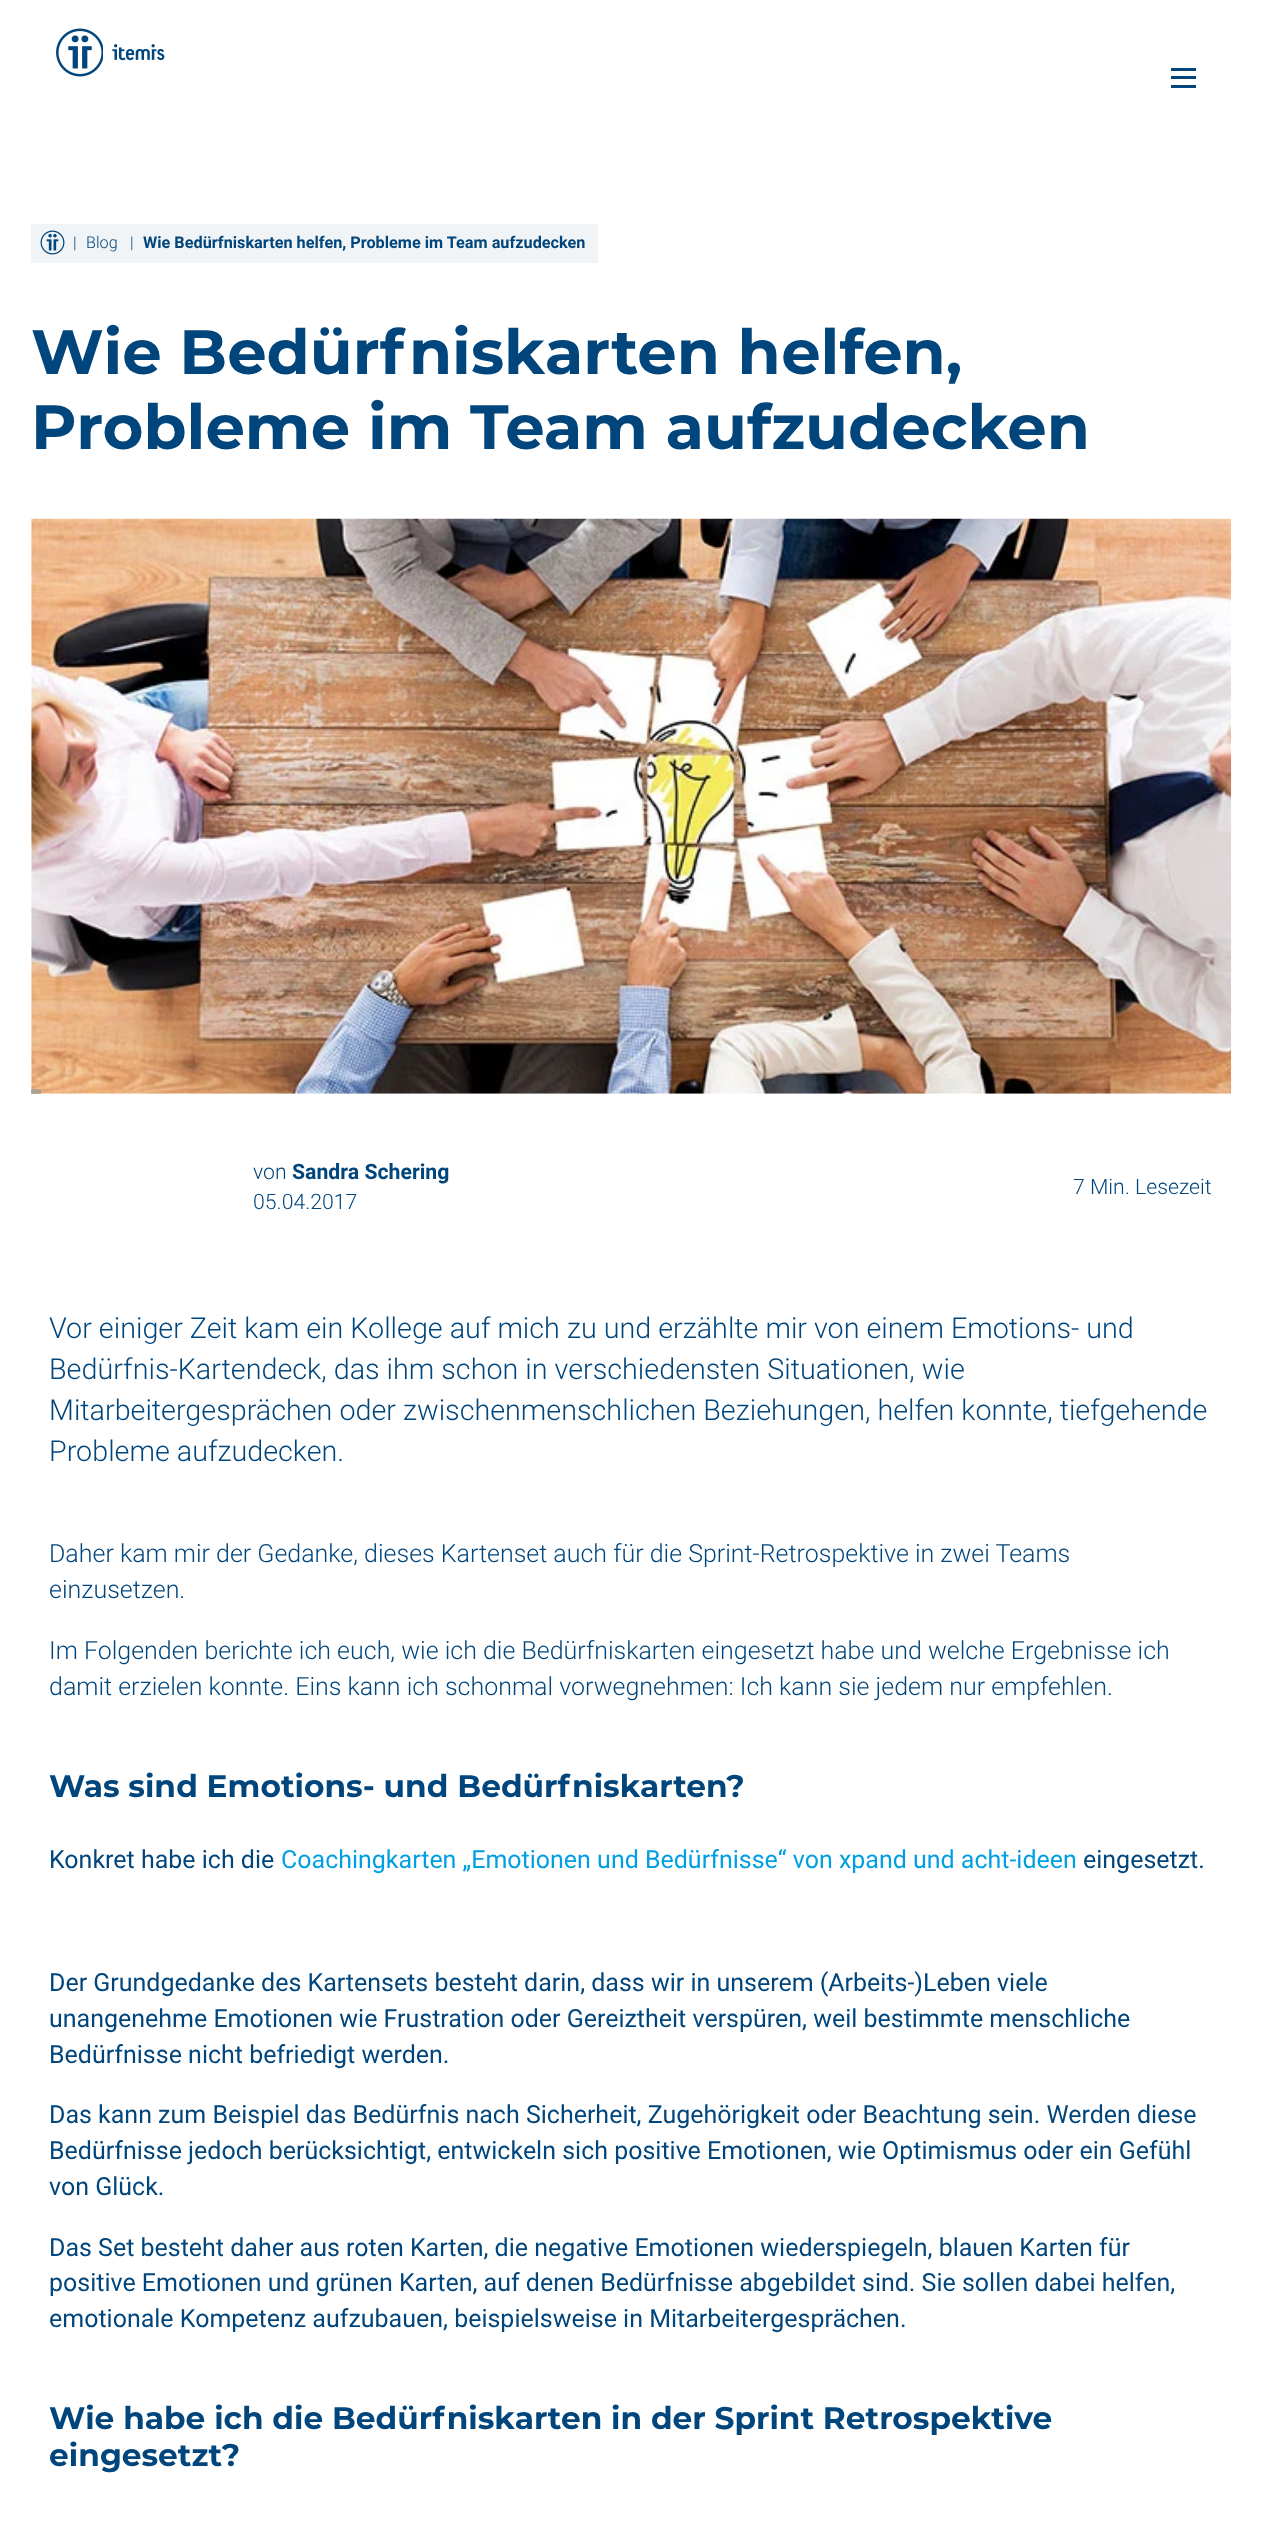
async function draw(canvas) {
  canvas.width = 1261;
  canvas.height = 2534;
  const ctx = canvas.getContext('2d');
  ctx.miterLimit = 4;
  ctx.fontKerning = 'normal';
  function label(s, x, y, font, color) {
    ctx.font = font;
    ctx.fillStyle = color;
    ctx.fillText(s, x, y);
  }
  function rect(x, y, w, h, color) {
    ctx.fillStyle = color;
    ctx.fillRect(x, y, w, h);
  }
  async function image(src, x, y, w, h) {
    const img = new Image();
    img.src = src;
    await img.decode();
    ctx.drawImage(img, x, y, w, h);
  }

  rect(0, 0, 1261, 2534, '#fff');
  await image('assets/img1.png', 56, 28, 47, 49);
  await image('assets/img2.png', 112, 44, 53, 17);
  rect(1171, 76, 25, 3, '#00457c');
  rect(1171, 68, 25, 3, '#00457c');
  rect(1171, 85, 25, 3, '#00457c');
  rect(31, 224, 567, 39, '#f1f4f6');
  await image('assets/img3.png', 40, 230, 25, 25);
  label('|', 73, 248, '300 16.25px Roboto', '#00457c');
  label('Blog', 86, 248, '300 16.25px Roboto', '#00457c');
  label('|', 130, 248, '300 16.25px Roboto', '#00457c');
  label('Wie Bedürfniskarten helfen, Probleme im Team aufzudecken', 143, 248, 'bold 16.25px Roboto', '#00457c');
  label('Wie Bedürfniskarten helfen,', 31, 374, 'bold 62.5px Montserrat', '#00457c');
  label('Probleme im Team aufzudecken', 31, 449, 'bold 62.5px Montserrat', '#00457c');
  await image('assets/img4.png', 31, 518, 1201, 576);
  rect(31, 1089, 10, 5, '#9d9d9bbf');
  label('von', 253, 1179, '300 21.25px Roboto', '#00457c');
  label('Sandra Schering', 292, 1179, 'bold 21.25px Roboto', '#00457c');
  label('05.04.2017', 253, 1209, '300 21.25px Roboto', '#00457c');
  label('7 Min. Lesezeit', 1073, 1194, '300 21.25px Roboto', '#00457c');
  label('Vor einiger Zeit kam ein Kollege auf mich zu und erzählte mir von einem Emotions- und', 49, 1338, '300 28.75px Roboto', '#00457c');
  label('Bedürfnis-Kartendeck, das ihm schon in verschiedensten Situationen, wie', 49, 1379, '300 28.75px Roboto', '#00457c');
  label('Mitarbeitergesprächen oder zwischenmenschlichen Beziehungen, helfen konnte, tiefgehende', 49, 1420, '300 28.75px Roboto', '#00457c');
  label('Probleme aufzudecken.', 49, 1461, '300 28.75px Roboto', '#00457c');
  label('Daher kam mir der Gedanke, dieses Kartenset auch für die Sprint-Retrospektive in zwei Teams', 49, 1562, '300 25px Roboto', '#00457c');
  label('einzusetzen.', 49, 1598, '300 25px Roboto', '#00457c');
  label('Im Folgenden berichte ich euch, wie ich die Bedürfniskarten eingesetzt habe und welche Ergebnisse ich', 49, 1659, '300 25px Roboto', '#00457c');
  label('damit erzielen konnte. Eins kann ich schonmal vorwegnehmen: Ich kann sie jedem nur empfehlen.', 49, 1695, '300 25px Roboto', '#00457c');
  label('Was sind Emotions- und Bedürfniskarten?', 49, 1797, 'bold 31.25px Montserrat', '#00457c');
  label('Konkret habe ich die', 49, 1868, '25px Roboto', '#00457c');
  label('Coachingkarten „Emotionen und Bedürfnisse“ von xpand und acht-ideen', 281, 1868, '25px Roboto', '#009fe3');
  label('eingesetzt.', 1083, 1868, '25px Roboto', '#00457c');
  label('Der Grundgedanke des Kartensets besteht darin, dass wir in unserem (Arbeits-)Leben viele', 49, 1991, '25px Roboto', '#00457c');
  label('unangenehme Emotionen wie Frustration oder Gereiztheit verspüren, weil bestimmte menschliche', 49, 2027, '25px Roboto', '#00457c');
  label('Bedürfnisse nicht befriedigt werden.', 49, 2063, '25px Roboto', '#00457c');
  label('Das kann zum Beispiel das Bedürfnis nach Sicherheit, Zugehörigkeit oder Beachtung sein. Werden diese', 49, 2123, '25px Roboto', '#00457c');
  label('Bedürfnisse jedoch berücksichtigt, entwickeln sich positive Emotionen, wie Optimismus oder ein Gefühl', 49, 2159, '25px Roboto', '#00457c');
  label('von Glück.', 49, 2195, '25px Roboto', '#00457c');
  label('Das Set besteht daher aus roten Karten, die negative Emotionen wiederspiegeln, blauen Karten für', 49, 2256, '25px Roboto', '#00457c');
  label('positive Emotionen und grünen Karten, auf denen Bedürfnisse abgebildet sind. Sie sollen dabei helfen,', 49, 2291, '25px Roboto', '#00457c');
  label('emotionale Kompetenz aufzubauen, beispielsweise in Mitarbeitergesprächen.', 49, 2327, '25px Roboto', '#00457c');
  label('Wie habe ich die Bedürfniskarten in der Sprint Retrospektive', 49, 2429, 'bold 31.25px Montserrat', '#00457c');
  label('eingesetzt?', 49, 2466, 'bold 31.25px Montserrat', '#00457c');
}

draw(document.querySelector('canvas'));
